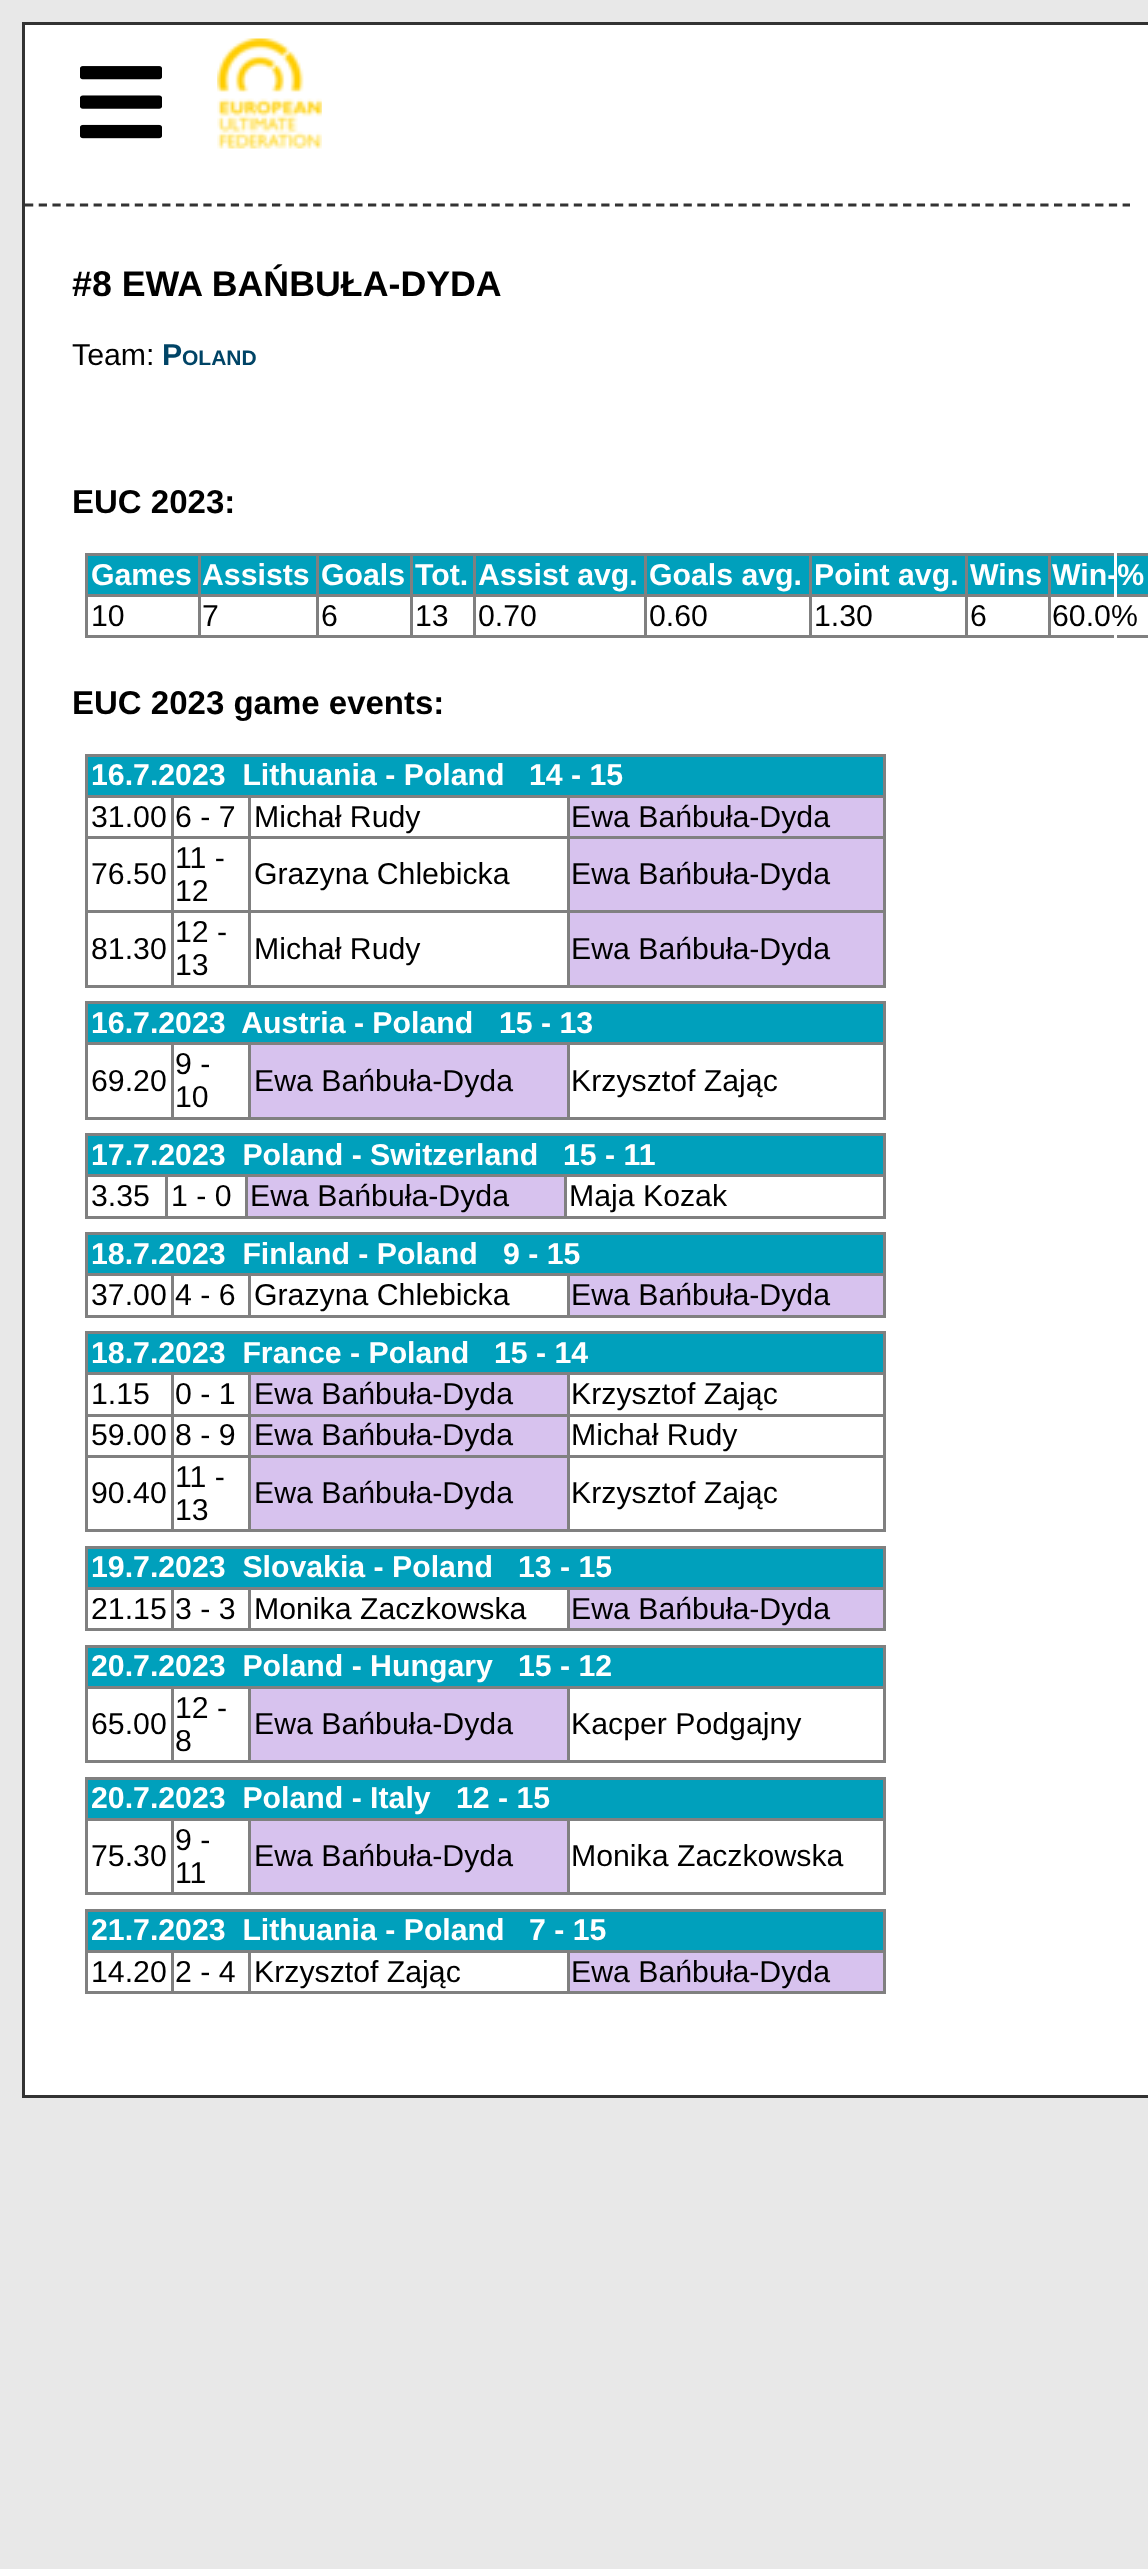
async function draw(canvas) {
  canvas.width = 1148;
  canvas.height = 2569;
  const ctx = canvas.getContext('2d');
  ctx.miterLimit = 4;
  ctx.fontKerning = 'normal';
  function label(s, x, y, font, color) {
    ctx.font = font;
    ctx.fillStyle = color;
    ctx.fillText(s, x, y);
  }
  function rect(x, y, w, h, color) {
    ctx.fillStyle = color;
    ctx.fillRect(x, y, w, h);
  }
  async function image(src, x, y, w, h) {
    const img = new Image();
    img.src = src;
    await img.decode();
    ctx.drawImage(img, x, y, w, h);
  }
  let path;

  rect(0, 0, 1148, 2569, '#e8e8e8');
  ctx.fillStyle = '#fff';
  ctx.beginPath();
  ctx.rect(23.5, 23.5, 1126, 2073);
  ctx.fill();
  ctx.strokeStyle = '#333';
  ctx.lineWidth = 3;
  ctx.stroke();
  path = new Path2D('M25 205H1130');
  ctx.lineWidth = 2.8;
  ctx.setLineDash([8.25, 5.47]);
  ctx.stroke(path);
  await image('assets/img1.png', 80, 66, 82, 73);
  await image('assets/img2.png', 217, 38, 105, 111);
  rect(85, 553, 1063, 3, '#808080');
  rect(85, 635, 1063, 3, '#808080');
  rect(1051, 556, 97, 38, '#00a0bc');
  rect(1048, 594, 100, 3, '#808080');
  rect(1114, 553, 3, 85, '#fff');
  label('#8 EWA BAŃBUŁA-DYDA', 72, 296, 'bold 35.75px Liberation Sans', '#000');
  label('Team:', 72, 365, '30.25px Liberation Sans', '#000');
  label('P', 162, 365, 'bold 30.25px Liberation Sans', '#046');
  label('OLAND', 182, 365, 'bold 21px Liberation Sans', '#046');
  label('EUC 2023:', 72, 513, 'bold 33px Liberation Sans', '#000');
  rect(85, 553, 3, 85, '#808080');
  rect(88, 556, 110, 38, '#00a0bc');
  label('Games', 91, 585, 'bold 30.25px Liberation Sans', '#fff');
  rect(201, 556, 115, 38, '#00a0bc');
  rect(1048, 594, 3, 44, '#808080');
  rect(965, 594, 86, 3, '#808080');
  rect(965, 594, 3, 44, '#808080');
  rect(809, 594, 159, 3, '#808080');
  rect(809, 594, 3, 44, '#808080');
  rect(644, 594, 167, 3, '#808080');
  rect(644, 594, 3, 44, '#808080');
  rect(473, 594, 173, 3, '#808080');
  rect(473, 594, 3, 44, '#808080');
  rect(410, 594, 66, 3, '#808080');
  rect(410, 594, 3, 44, '#808080');
  rect(316, 594, 97, 3, '#808080');
  rect(316, 594, 3, 44, '#808080');
  rect(198, 594, 121, 3, '#808080');
  rect(198, 594, 3, 44, '#808080');
  rect(85, 594, 116, 3, '#808080');
  rect(198, 553, 3, 44, '#808080');
  label('Assists', 202, 585, 'bold 30.25px Liberation Sans', '#fff');
  rect(319, 556, 91, 38, '#00a0bc');
  rect(316, 553, 3, 44, '#808080');
  label('Goals', 321, 585, 'bold 30.25px Liberation Sans', '#fff');
  rect(413, 556, 60, 38, '#00a0bc');
  rect(410, 553, 3, 44, '#808080');
  label('Tot.', 415, 585, 'bold 30.25px Liberation Sans', '#fff');
  rect(476, 556, 168, 38, '#00a0bc');
  rect(473, 553, 3, 44, '#808080');
  label('Assist avg.', 478, 585, 'bold 30.25px Liberation Sans', '#fff');
  rect(647, 556, 162, 38, '#00a0bc');
  rect(644, 553, 3, 44, '#808080');
  label('Goals avg.', 649, 585, 'bold 30.25px Liberation Sans', '#fff');
  rect(812, 556, 153, 38, '#00a0bc');
  rect(809, 553, 3, 44, '#808080');
  label('Point avg.', 814, 585, 'bold 30.25px Liberation Sans', '#fff');
  rect(968, 556, 80, 38, '#00a0bc');
  rect(965, 553, 3, 44, '#808080');
  label('Wins', 970, 585, 'bold 30.25px Liberation Sans', '#fff');
  rect(1048, 553, 3, 44, '#808080');
  label('Win-%', 1052, 585, 'bold 30.25px Liberation Sans', '#fff');
  label('10', 91, 626, '30.25px Liberation Sans', '#000');
  label('7', 202, 626, '30.25px Liberation Sans', '#000');
  label('6', 321, 626, '30.25px Liberation Sans', '#000');
  label('13', 415, 626, '30.25px Liberation Sans', '#000');
  label('0.70', 478, 626, '30.25px Liberation Sans', '#000');
  label('0.60', 649, 626, '30.25px Liberation Sans', '#000');
  label('1.30', 814, 626, '30.25px Liberation Sans', '#000');
  label('6', 970, 626, '30.25px Liberation Sans', '#000');
  label('60.0%', 1052, 626, '30.25px Liberation Sans', '#000');
  label('EUC 2023 game events:', 72, 714, 'bold 33px Liberation Sans', '#000');
  rect(85, 754, 801, 3, '#808080');
  rect(883, 754, 3, 233, '#808080');
  rect(85, 985, 801, 3, '#808080');
  rect(85, 754, 3, 233, '#808080');
  rect(88, 757, 795, 38, '#00a0bc');
  label('16.7.2023  Lithuania - Poland', 91, 785, 'bold 30.25px Liberation Sans', '#fff');
  label('14 - 15', 529, 785, 'bold 30.25px Liberation Sans', '#fff');
  rect(567, 795, 319, 3, '#808080');
  rect(567, 836, 319, 3, '#808080');
  rect(567, 910, 319, 3, '#808080');
  rect(567, 910, 3, 77, '#808080');
  rect(248, 910, 321, 3, '#808080');
  rect(567, 836, 3, 77, '#808080');
  rect(248, 836, 321, 3, '#808080');
  rect(567, 795, 3, 44, '#808080');
  rect(248, 795, 321, 3, '#808080');
  rect(248, 910, 3, 77, '#808080');
  rect(171, 910, 79, 3, '#808080');
  rect(248, 836, 3, 77, '#808080');
  rect(171, 836, 79, 3, '#808080');
  rect(248, 795, 3, 44, '#808080');
  rect(171, 795, 79, 3, '#808080');
  rect(171, 910, 3, 77, '#808080');
  rect(85, 910, 88, 3, '#808080');
  rect(171, 836, 3, 77, '#808080');
  rect(85, 836, 88, 3, '#808080');
  rect(171, 795, 3, 44, '#808080');
  rect(570, 798, 313, 38, '#d7c2ee');
  label('Ewa Bańbuła-Dyda', 571, 827, '30.25px Liberation Sans', '#000');
  rect(85, 795, 88, 3, '#808080');
  label('31.00 6 - 7', 91, 827, '30.25px Liberation Sans', '#000');
  label('Michał Rudy', 254, 827, '30.25px Liberation Sans', '#000');
  label('76.50', 91, 884, '30.25px Liberation Sans', '#000');
  label('11 -', 175, 868, '30.25px Liberation Sans', '#000');
  label('12', 175, 901, '30.25px Liberation Sans', '#000');
  label('Grazyna Chlebicka', 254, 884, '30.25px Liberation Sans', '#000');
  rect(570, 839, 313, 71, '#d7c2ee');
  label('Ewa Bańbuła-Dyda', 571, 884, '30.25px Liberation Sans', '#000');
  label('81.30', 91, 959, '30.25px Liberation Sans', '#000');
  label('12 -', 175, 942, '30.25px Liberation Sans', '#000');
  label('13', 175, 975, '30.25px Liberation Sans', '#000');
  label('Michał Rudy', 254, 959, '30.25px Liberation Sans', '#000');
  rect(570, 913, 313, 72, '#d7c2ee');
  label('Ewa Bańbuła-Dyda', 571, 959, '30.25px Liberation Sans', '#000');
  rect(85, 1001, 801, 3, '#808080');
  rect(883, 1001, 3, 118, '#808080');
  rect(85, 1117, 801, 3, '#808080');
  rect(85, 1001, 3, 118, '#808080');
  rect(88, 1004, 795, 38, '#00a0bc');
  label('16.7.2023  Austria - Poland', 91, 1033, 'bold 30.25px Liberation Sans', '#fff');
  label('15 - 13', 499, 1033, 'bold 30.25px Liberation Sans', '#fff');
  rect(567, 1042, 319, 3, '#808080');
  rect(567, 1042, 3, 77, '#808080');
  rect(248, 1042, 321, 3, '#808080');
  rect(248, 1042, 3, 77, '#808080');
  rect(171, 1042, 79, 3, '#808080');
  rect(171, 1042, 3, 77, '#808080');
  rect(85, 1042, 88, 3, '#808080');
  label('69.20', 91, 1091, '30.25px Liberation Sans', '#000');
  label('9 -', 175, 1074, '30.25px Liberation Sans', '#000');
  label('10', 175, 1107, '30.25px Liberation Sans', '#000');
  rect(251, 1045, 316, 72, '#d7c2ee');
  label('Ewa Bańbuła-Dyda', 254, 1091, '30.25px Liberation Sans', '#000');
  label('Krzysztof Zając', 571, 1091, '30.25px Liberation Sans', '#000');
  rect(85, 1133, 801, 3, '#808080');
  rect(883, 1133, 3, 85, '#808080');
  rect(85, 1216, 801, 3, '#808080');
  rect(85, 1133, 3, 85, '#808080');
  rect(88, 1136, 795, 38, '#00a0bc');
  label('17.7.2023  Poland - Switzerland', 91, 1165, 'bold 30.25px Liberation Sans', '#fff');
  label('15 - 11', 563, 1165, 'bold 30.25px Liberation Sans', '#fff');
  rect(564, 1174, 322, 3, '#808080');
  rect(564, 1174, 3, 44, '#808080');
  rect(245, 1174, 322, 3, '#808080');
  rect(245, 1174, 3, 44, '#808080');
  rect(165, 1174, 83, 3, '#808080');
  rect(165, 1174, 3, 44, '#808080');
  rect(85, 1174, 83, 3, '#808080');
  label('3.35', 91, 1206, '30.25px Liberation Sans', '#000');
  label('1 - 0', 171, 1206, '30.25px Liberation Sans', '#000');
  rect(248, 1177, 316, 39, '#d7c2ee');
  label('Ewa Bańbuła-Dyda', 250, 1206, '30.25px Liberation Sans', '#000');
  label('Maja Kozak', 569, 1206, '30.25px Liberation Sans', '#000');
  rect(85, 1232, 801, 3, '#808080');
  rect(883, 1232, 3, 85, '#808080');
  rect(85, 1315, 801, 3, '#808080');
  rect(85, 1232, 3, 85, '#808080');
  rect(88, 1235, 795, 38, '#00a0bc');
  label('18.7.2023  Finland - Poland', 91, 1264, 'bold 30.25px Liberation Sans', '#fff');
  label('9 - 15', 503, 1264, 'bold 30.25px Liberation Sans', '#fff');
  rect(567, 1273, 319, 3, '#808080');
  rect(567, 1273, 3, 44, '#808080');
  rect(248, 1273, 321, 3, '#808080');
  rect(248, 1273, 3, 44, '#808080');
  rect(171, 1273, 79, 3, '#808080');
  rect(171, 1273, 3, 44, '#808080');
  rect(570, 1276, 313, 39, '#d7c2ee');
  label('Ewa Bańbuła-Dyda', 571, 1305, '30.25px Liberation Sans', '#000');
  rect(85, 1273, 88, 3, '#808080');
  label('37.00 4 - 6', 91, 1305, '30.25px Liberation Sans', '#000');
  label('Grazyna Chlebicka', 254, 1305, '30.25px Liberation Sans', '#000');
  rect(85, 1331, 801, 3, '#808080');
  rect(883, 1331, 3, 201, '#808080');
  rect(85, 1529, 801, 3, '#808080');
  rect(85, 1331, 3, 201, '#808080');
  rect(88, 1334, 795, 38, '#00a0bc');
  label('18.7.2023  France - Poland', 91, 1363, 'bold 30.25px Liberation Sans', '#fff');
  label('15 - 14', 494, 1363, 'bold 30.25px Liberation Sans', '#fff');
  rect(567, 1372, 319, 3, '#808080');
  rect(567, 1414, 319, 3, '#808080');
  rect(567, 1455, 319, 3, '#808080');
  rect(567, 1455, 3, 77, '#808080');
  rect(248, 1455, 321, 3, '#808080');
  rect(567, 1414, 3, 44, '#808080');
  rect(248, 1414, 321, 3, '#808080');
  rect(567, 1372, 3, 44, '#808080');
  rect(248, 1372, 321, 3, '#808080');
  rect(248, 1455, 3, 77, '#808080');
  rect(171, 1455, 79, 3, '#808080');
  rect(248, 1414, 3, 44, '#808080');
  rect(171, 1414, 79, 3, '#808080');
  rect(248, 1372, 3, 44, '#808080');
  rect(171, 1372, 79, 3, '#808080');
  rect(171, 1455, 3, 77, '#808080');
  rect(85, 1455, 88, 3, '#808080');
  rect(171, 1414, 3, 44, '#808080');
  rect(85, 1414, 88, 3, '#808080');
  rect(171, 1372, 3, 44, '#808080');
  rect(85, 1372, 88, 3, '#808080');
  label('1.15', 91, 1404, '30.25px Liberation Sans', '#000');
  label('0 - 1', 175, 1404, '30.25px Liberation Sans', '#000');
  rect(251, 1375, 316, 39, '#d7c2ee');
  label('Ewa Bańbuła-Dyda', 254, 1404, '30.25px Liberation Sans', '#000');
  label('Krzysztof Zając', 571, 1404, '30.25px Liberation Sans', '#000');
  rect(251, 1417, 316, 38, '#d7c2ee');
  label('Ewa Bańbuła-Dyda', 254, 1445, '30.25px Liberation Sans', '#000');
  label('59.00 8 - 9', 91, 1445, '30.25px Liberation Sans', '#000');
  label('Michał Rudy', 571, 1445, '30.25px Liberation Sans', '#000');
  label('90.40', 91, 1503, '30.25px Liberation Sans', '#000');
  label('11 -', 175, 1487, '30.25px Liberation Sans', '#000');
  label('13', 175, 1520, '30.25px Liberation Sans', '#000');
  rect(251, 1458, 316, 71, '#d7c2ee');
  label('Ewa Bańbuła-Dyda', 254, 1503, '30.25px Liberation Sans', '#000');
  label('Krzysztof Zając', 571, 1503, '30.25px Liberation Sans', '#000');
  rect(85, 1546, 801, 3, '#808080');
  rect(883, 1546, 3, 85, '#808080');
  rect(85, 1628, 801, 3, '#808080');
  rect(85, 1546, 3, 85, '#808080');
  rect(88, 1549, 795, 38, '#00a0bc');
  label('19.7.2023  Slovakia - Poland', 91, 1577, 'bold 30.25px Liberation Sans', '#fff');
  label('13 - 15', 518, 1577, 'bold 30.25px Liberation Sans', '#fff');
  rect(567, 1587, 319, 3, '#808080');
  rect(567, 1587, 3, 44, '#808080');
  rect(248, 1587, 321, 3, '#808080');
  rect(248, 1587, 3, 44, '#808080');
  rect(171, 1587, 79, 3, '#808080');
  rect(171, 1587, 3, 44, '#808080');
  rect(570, 1590, 313, 38, '#d7c2ee');
  label('Ewa Bańbuła-Dyda', 571, 1619, '30.25px Liberation Sans', '#000');
  rect(85, 1587, 88, 3, '#808080');
  label('21.15 3 - 3', 91, 1619, '30.25px Liberation Sans', '#000');
  label('Monika Zaczkowska', 254, 1619, '30.25px Liberation Sans', '#000');
  rect(85, 1645, 801, 3, '#808080');
  rect(883, 1645, 3, 118, '#808080');
  rect(85, 1760, 801, 3, '#808080');
  rect(85, 1645, 3, 118, '#808080');
  rect(88, 1648, 795, 38, '#00a0bc');
  label('20.7.2023  Poland - Hungary', 91, 1676, 'bold 30.25px Liberation Sans', '#fff');
  label('15 - 12', 518, 1676, 'bold 30.25px Liberation Sans', '#fff');
  rect(567, 1686, 319, 3, '#808080');
  rect(567, 1686, 3, 77, '#808080');
  rect(248, 1686, 321, 3, '#808080');
  rect(248, 1686, 3, 77, '#808080');
  rect(171, 1686, 79, 3, '#808080');
  rect(171, 1686, 3, 77, '#808080');
  rect(85, 1686, 88, 3, '#808080');
  label('65.00', 91, 1734, '30.25px Liberation Sans', '#000');
  label('12 -', 175, 1718, '30.25px Liberation Sans', '#000');
  label('8', 175, 1751, '30.25px Liberation Sans', '#000');
  rect(251, 1689, 316, 71, '#d7c2ee');
  label('Ewa Bańbuła-Dyda', 254, 1734, '30.25px Liberation Sans', '#000');
  label('Kacper Podgajny', 571, 1734, '30.25px Liberation Sans', '#000');
  rect(85, 1777, 801, 3, '#808080');
  rect(883, 1777, 3, 118, '#808080');
  rect(85, 1892, 801, 3, '#808080');
  rect(85, 1777, 3, 118, '#808080');
  rect(88, 1780, 795, 38, '#00a0bc');
  label('20.7.2023  Poland - Italy', 91, 1808, 'bold 30.25px Liberation Sans', '#fff');
  label('12 - 15', 456, 1808, 'bold 30.25px Liberation Sans', '#fff');
  rect(567, 1818, 319, 3, '#808080');
  rect(567, 1818, 3, 77, '#808080');
  rect(248, 1818, 321, 3, '#808080');
  rect(248, 1818, 3, 77, '#808080');
  rect(171, 1818, 79, 3, '#808080');
  rect(171, 1818, 3, 77, '#808080');
  rect(85, 1818, 88, 3, '#808080');
  label('75.30', 91, 1866, '30.25px Liberation Sans', '#000');
  label('9 -', 175, 1850, '30.25px Liberation Sans', '#000');
  label('11', 175, 1883, '30.25px Liberation Sans', '#000');
  rect(251, 1821, 316, 71, '#d7c2ee');
  label('Ewa Bańbuła-Dyda', 254, 1866, '30.25px Liberation Sans', '#000');
  label('Monika Zaczkowska', 571, 1866, '30.25px Liberation Sans', '#000');
  rect(85, 1909, 801, 3, '#808080');
  rect(883, 1909, 3, 85, '#808080');
  rect(85, 1991, 801, 3, '#808080');
  rect(85, 1909, 3, 85, '#808080');
  rect(88, 1912, 795, 38, '#00a0bc');
  label('21.7.2023  Lithuania - Poland', 91, 1940, 'bold 30.25px Liberation Sans', '#fff');
  label('7 - 15', 529, 1940, 'bold 30.25px Liberation Sans', '#fff');
  rect(567, 1950, 319, 3, '#808080');
  rect(567, 1950, 3, 44, '#808080');
  rect(248, 1950, 321, 3, '#808080');
  rect(248, 1950, 3, 44, '#808080');
  rect(171, 1950, 79, 3, '#808080');
  rect(171, 1950, 3, 44, '#808080');
  rect(570, 1953, 313, 38, '#d7c2ee');
  label('Ewa Bańbuła-Dyda', 571, 1982, '30.25px Liberation Sans', '#000');
  rect(85, 1950, 88, 3, '#808080');
  label('14.20 2 - 4', 91, 1982, '30.25px Liberation Sans', '#000');
  label('Krzysztof Zając', 254, 1982, '30.25px Liberation Sans', '#000');
}

draw(document.querySelector('canvas'));
